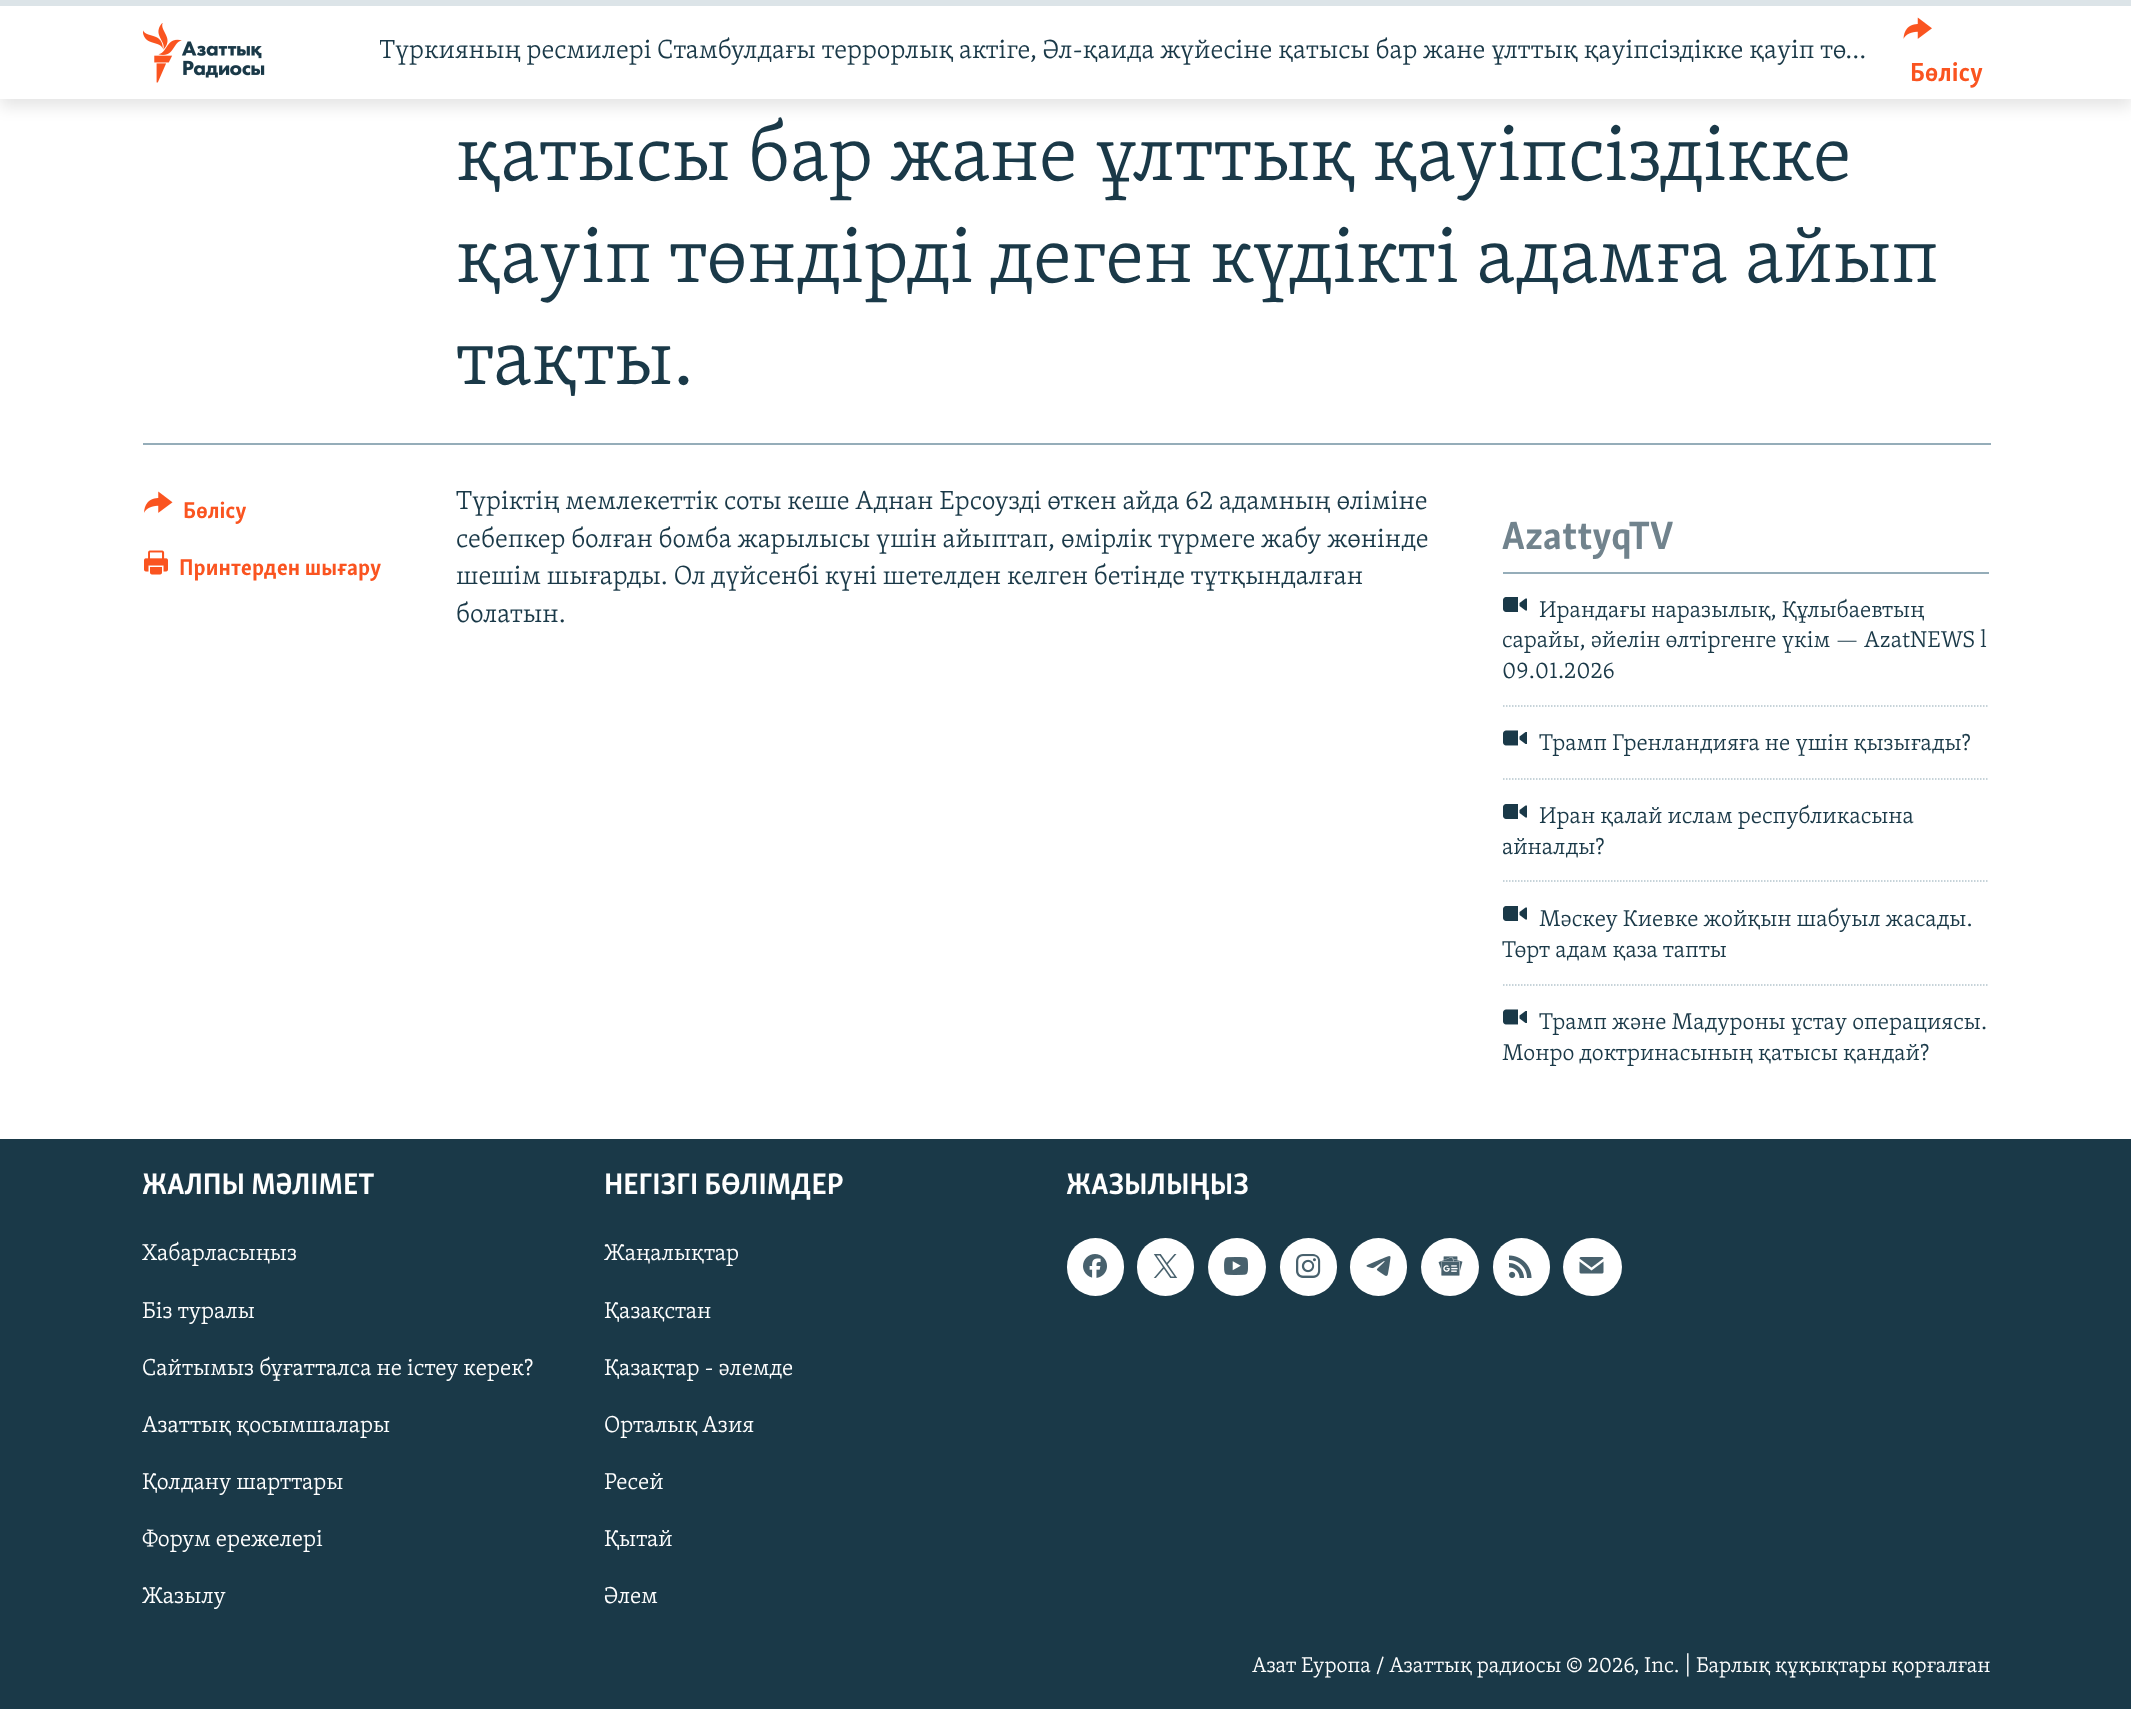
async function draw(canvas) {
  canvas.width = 2131;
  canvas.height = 1709;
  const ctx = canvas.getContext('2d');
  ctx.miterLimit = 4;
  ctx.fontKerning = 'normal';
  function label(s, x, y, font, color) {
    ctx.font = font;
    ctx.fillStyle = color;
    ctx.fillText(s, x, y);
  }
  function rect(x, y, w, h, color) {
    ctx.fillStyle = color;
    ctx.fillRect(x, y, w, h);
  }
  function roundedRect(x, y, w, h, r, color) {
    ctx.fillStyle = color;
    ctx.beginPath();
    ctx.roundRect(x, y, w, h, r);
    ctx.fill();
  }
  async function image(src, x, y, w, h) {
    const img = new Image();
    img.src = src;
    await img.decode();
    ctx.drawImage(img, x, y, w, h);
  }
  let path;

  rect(0, 0, 2131, 1709, '#fff');
  ctx.fillStyle = '#0000001a';
  ctx.filter = 'blur(7.5px)';
  ctx.beginPath();
  ctx.rect(0, 8, 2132, 99);
  ctx.fill();
  ctx.filter = 'none';
  rect(0, 6, 2131, 93, '#fff');
  rect(0, 0, 2131, 6, '#dce4e8');
  await image('assets/img1.png', 143, 23, 122, 60);
  ctx.save();
  ctx.beginPath();
  ctx.rect(380, 33, 1495, 39);
  ctx.clip();
  label('Түркияның ресмилері', 379, 58, '300 27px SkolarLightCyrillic', '#1a3948');
  ctx.restore();
  label('Стамбулдағы террорлық актіге, Әл-қаида жүйесіне қатысы бар жане ұлттық қауіпсіздікке қауіп тө…', 657, 58, '300 27px SkolarLightCyrillic', '#1a3948');
  await image('assets/img2.png', 1903, 17, 29, 22);
  label('Бөлісу', 1910, 81, 'bold 27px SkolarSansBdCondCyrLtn', '#fa5420');
  label('қатысы бар жане ұлттық қауіпсіздікке', 456, 180, '300 81px SkolarLightCyrillic', '#1a3948');
  label('қауіп төндірді деген күдікті адамға айып', 456, 282, '300 81px SkolarLightCyrillic', '#1a3948');
  label('тақты.', 456, 384, '300 81px SkolarLightCyrillic', '#1a3948');
  rect(143, 443, 1848, 2, '#95adb9');
  await image('assets/img3.png', 144, 491, 29, 22);
  label('Бөлісу', 183, 518, 'bold 23.6px SkolarSansBdCondCyrLtn', '#fa5420');
  await image('assets/img4.png', 144, 550, 24, 25);
  label('Принтерден шығару', 179, 575, 'bold 23.6px SkolarSansBdCondCyrLtn', '#fa5420');
  label('Түріктің мемлекеттік соты кеше Аднан Ерсоузді өткен айда 62 адамның өліміне', 456, 509, '300 27px SkolarLightCyrillic', '#1a3948');
  label('себепкер болған бомба жарылысы үшін айыптап, өмірлік түрмеге жабу жөнінде', 456, 547, '300 27px SkolarLightCyrillic', '#1a3948');
  label('шешім шығарды. Ол дүйсенбі күні шетелден келген бетінде тұтқындалған', 456, 584, '300 27px SkolarLightCyrillic', '#1a3948');
  label('болатын.', 456, 622, '300 27px SkolarLightCyrillic', '#1a3948');
  rect(1503, 572, 486, 2, '#95adb9');
  label('AzattyqTV', 1502, 549, 'bold 40.5px SkolarSansBdCondCyrLtn', '#71838d');
  await image('assets/img5.png', 1503, 597, 24, 15);
  label('Ирандағы наразылық, Құлыбаевтың', 1539, 617, '300 23.6px SkolarLightCyrillic', '#1a3948');
  label('сарайы, әйелін өлтіргенге үкім — AzatNEWS l', 1502, 647, '300 23.6px SkolarLightCyrillic', '#1a3948');
  label('09.01.2026', 1502, 678, '300 23.6px SkolarLightCyrillic', '#1a3948');
  path = new Path2D('M1503 706H1989');
  ctx.strokeStyle = '#b4c5cd';
  ctx.lineWidth = 1.5;
  ctx.setLineDash([1.5, 1.5]);
  ctx.stroke(path);
  await image('assets/img6.png', 1503, 730, 24, 16);
  label('Трамп Гренландияға не үшін қызығады?', 1539, 750, '300 23.6px SkolarLightCyrillic', '#1a3948');
  path = new Path2D('M1503 779H1989');
  ctx.stroke(path);
  await image('assets/img5.png', 1503, 804, 24, 15);
  label('Иран қалай ислам республикасына', 1539, 823, '300 23.6px SkolarLightCyrillic', '#1a3948');
  label('айналды?', 1502, 854, '300 23.6px SkolarLightCyrillic', '#1a3948');
  path = new Path2D('M1503 881H1989');
  ctx.stroke(path);
  await image('assets/img5.png', 1503, 906, 24, 15);
  label('Мәскеу Киевке жойқын шабуыл жасады.', 1539, 926, '300 23.6px SkolarLightCyrillic', '#1a3948');
  label('Төрт адам қаза тапты', 1502, 957, '300 23.6px SkolarLightCyrillic', '#1a3948');
  path = new Path2D('M1503 985H1989');
  ctx.stroke(path);
  await image('assets/img6.png', 1503, 1009, 24, 16);
  label('Трамп және Мадуроны ұстау операциясы.', 1539, 1029, '300 23.6px SkolarLightCyrillic', '#1a3948');
  label('Монро доктринасының қатысы қандай?', 1502, 1060, '300 23.6px SkolarLightCyrillic', '#1a3948');
  rect(0, 1139, 2131, 570, '#1a3948');
  label('ЖАЛПЫ МӘЛІМЕТ', 142, 1194, 'bold 30.5px SkolarSansBdCondCyrLtn', '#fff');
  label('Хабарласыңыз', 142, 1260, '300 23.6px SkolarLightCyrillic', '#fff');
  label('Біз туралы', 142, 1318, '300 23.6px SkolarLightCyrillic', '#fff');
  label('Сайтымыз бұғатталса не істеу керек?', 142, 1375, '300 23.6px SkolarLightCyrillic', '#fff');
  label('Азаттық қосымшалары', 142, 1432, '300 23.6px SkolarLightCyrillic', '#fff');
  label('Қолдану шарттары', 142, 1489, '300 23.6px SkolarLightCyrillic', '#fff');
  label('Форум ережелері', 142, 1546, '300 23.6px SkolarLightCyrillic', '#fff');
  label('Жазылу', 142, 1603, '300 23.6px SkolarLightCyrillic', '#fff');
  label('НЕГІЗГІ БӨЛІМДЕР', 604, 1194, 'bold 30.5px SkolarSansBdCondCyrLtn', '#fff');
  label('Жаңалықтар', 604, 1260, '300 23.6px SkolarLightCyrillic', '#fff');
  label('Қазақстан', 604, 1318, '300 23.6px SkolarLightCyrillic', '#fff');
  label('Қазақтар - әлемде', 604, 1375, '300 23.6px SkolarLightCyrillic', '#fff');
  label('Орталық Азия', 604, 1432, '300 23.6px SkolarLightCyrillic', '#fff');
  label('Ресей', 604, 1489, '300 23.6px SkolarLightCyrillic', '#fff');
  label('Қытай', 604, 1546, '300 23.6px SkolarLightCyrillic', '#fff');
  label('Әлем', 604, 1603, '300 23.6px SkolarLightCyrillic', '#fff');
  label('ЖАЗЫЛЫҢЫЗ', 1066, 1194, 'bold 30.5px SkolarSansBdCondCyrLtn', '#fff');
  roundedRect(1067, 1238, 57, 58, 28.5, '#fff');
  await image('assets/img7.png', 1083, 1254, 24, 24);
  roundedRect(1137, 1238, 57, 58, 28.5, '#fff');
  await image('assets/img8.png', 1153, 1254, 25, 24);
  ctx.beginPath();
  ctx.arc(1237, 1267, 29, 0, 2 * Math.PI);
  ctx.fill();
  await image('assets/img9.png', 1224, 1257, 24, 18);
  roundedRect(1280, 1238, 57, 58, 28.5, '#fff');
  await image('assets/img10.png', 1296, 1254, 25, 24);
  roundedRect(1350, 1238, 57, 58, 28.5, '#fff');
  await image('assets/img11.png', 1366, 1256, 25, 20);
  ctx.beginPath();
  ctx.arc(1450, 1267, 29, 0, 2 * Math.PI);
  ctx.fill();
  await image('assets/img12.png', 1438, 1256, 25, 20);
  roundedRect(1493, 1238, 57, 58, 28.5, '#fff');
  await image('assets/img13.png', 1509, 1255, 23, 23);
  roundedRect(1563, 1238, 59, 58, 29, '#fff');
  await image('assets/img14.png', 1579, 1257, 25, 17);
  label('Азат Еуропа / Азаттық радиосы © 2026, Inc. | Барлық құқықтары қорғалған', 1252, 1672, '300 21.95px SkolarLightCyrillic', '#fff');
}

draw(document.querySelector('canvas'));
